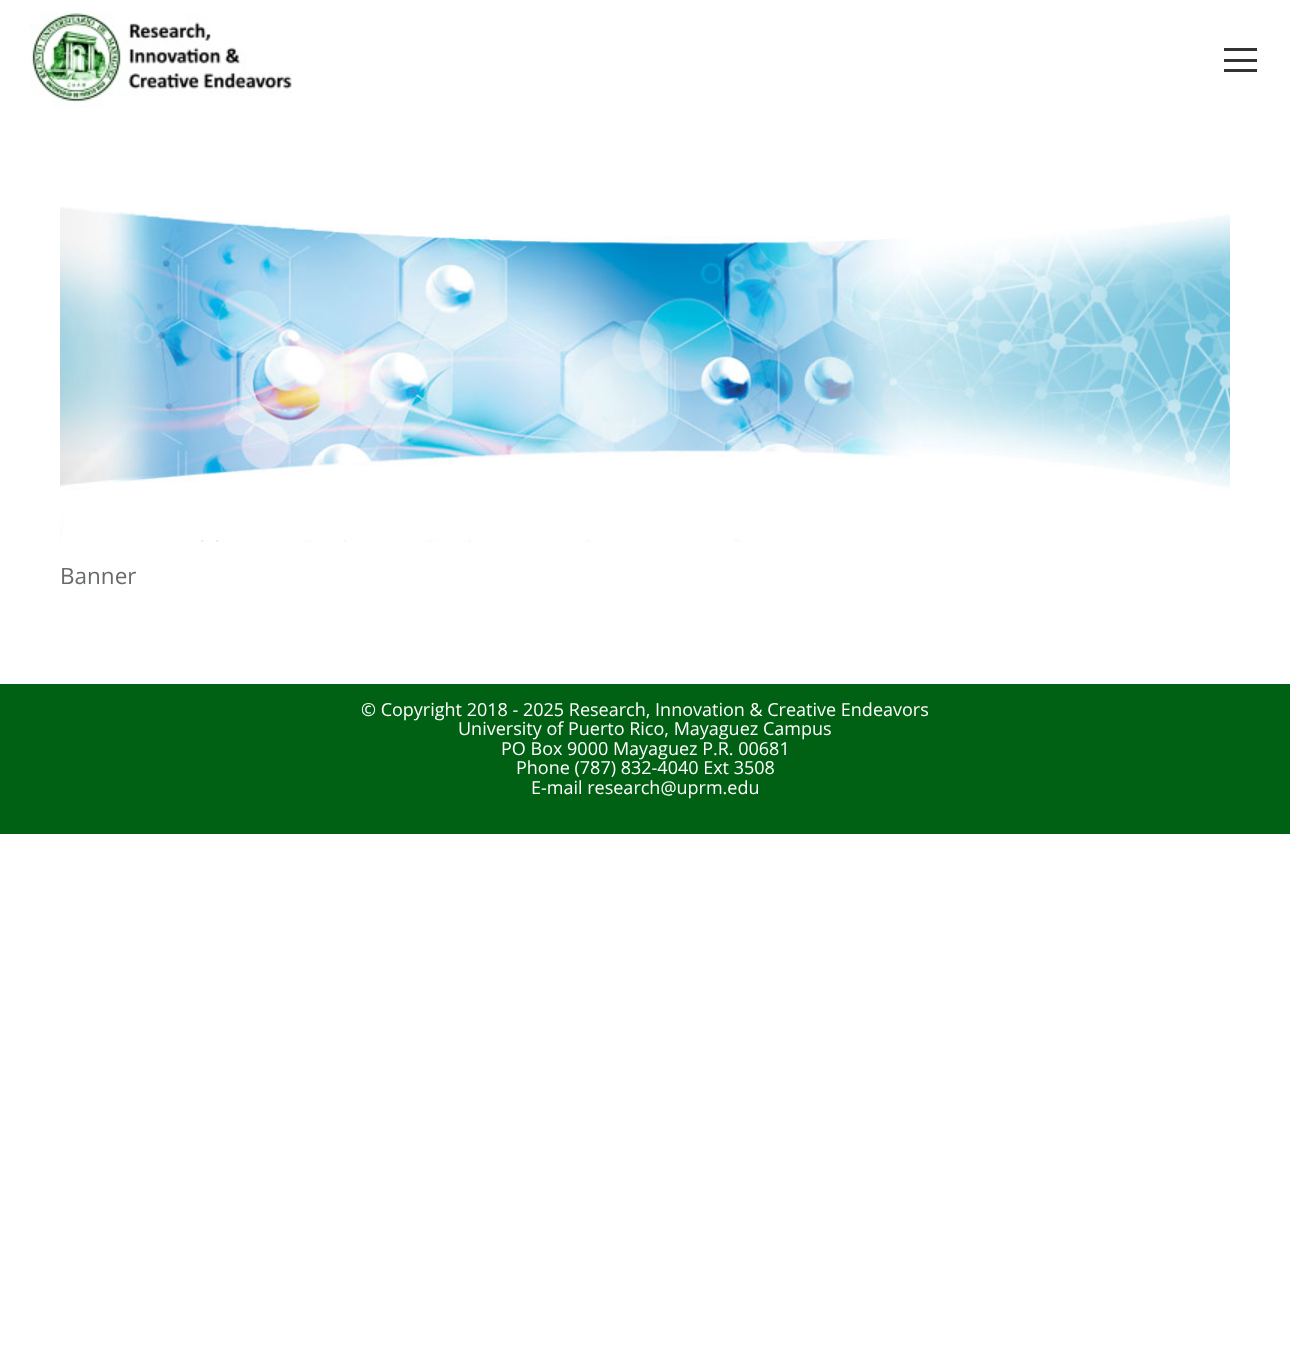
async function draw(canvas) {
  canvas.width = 1290;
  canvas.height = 1361;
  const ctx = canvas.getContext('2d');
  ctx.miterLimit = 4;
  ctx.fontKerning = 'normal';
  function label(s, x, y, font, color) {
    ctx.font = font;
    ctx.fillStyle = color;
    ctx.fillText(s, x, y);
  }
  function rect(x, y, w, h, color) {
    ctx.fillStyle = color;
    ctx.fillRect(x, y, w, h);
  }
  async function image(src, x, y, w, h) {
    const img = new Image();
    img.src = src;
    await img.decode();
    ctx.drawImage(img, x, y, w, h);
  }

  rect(0, 0, 1290, 1361, '#fff');
  await image('assets/img1.png', 30, 12, 262, 96);
  rect(1224, 48, 33, 3, '#333');
  rect(1224, 59, 33, 3, '#333');
  rect(1224, 69, 33, 3, '#333');
  await image('assets/img2.png', 60, 207, 1170, 335);
  label('Banner', 60, 584, '22.5px Open Sans', '#676b6d');
  rect(0, 684, 1290, 150, '#006013');
  label('© Copyright 2018 - 2025 Research, Innovation & Creative Endeavors', 361, 716, '18px Open Sans', '#fff');
  label('University of Puerto Rico, Mayaguez Campus', 458, 735, '18px Open Sans', '#fff');
  label('PO Box 9000 Mayaguez P.R. 00681', 501, 755, '18px Open Sans', '#fff');
  label('Phone (787) 832-4040 Ext 3508', 516, 774, '18px Open Sans', '#fff');
  label('E-mail research@uprm.edu', 531, 794, '18px Open Sans', '#fff');
}

draw(document.querySelector('canvas'));
